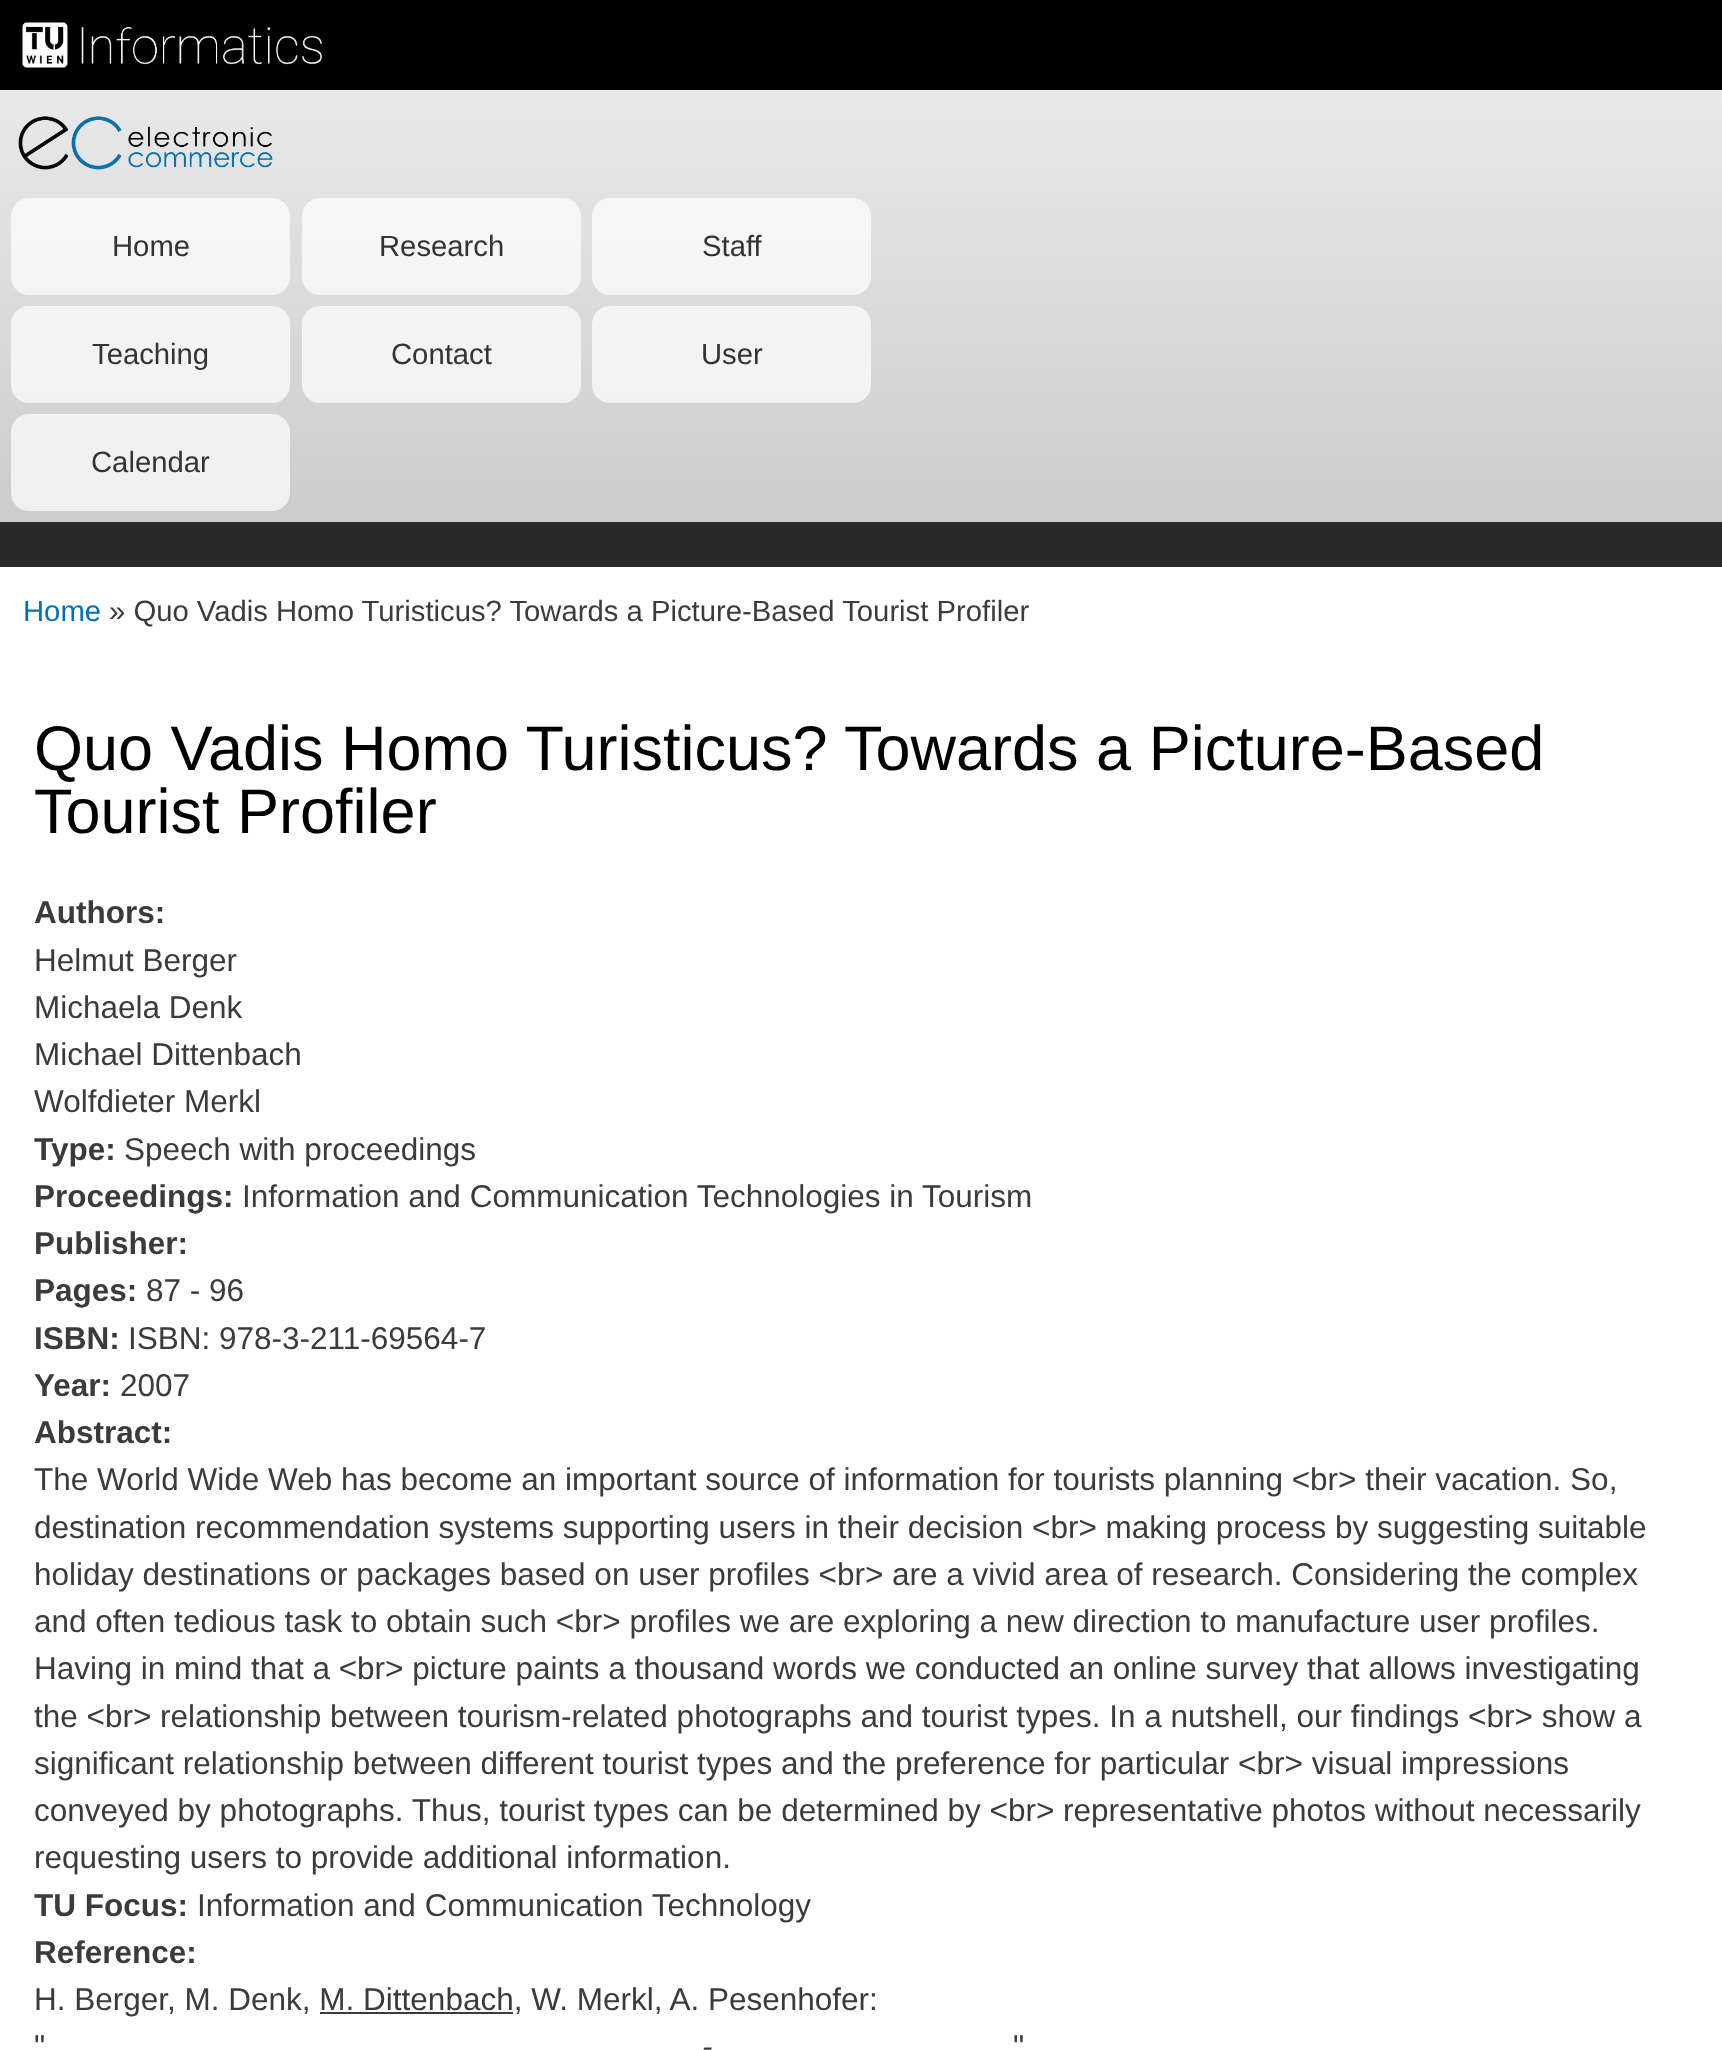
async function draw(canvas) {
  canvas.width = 1722;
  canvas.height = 2050;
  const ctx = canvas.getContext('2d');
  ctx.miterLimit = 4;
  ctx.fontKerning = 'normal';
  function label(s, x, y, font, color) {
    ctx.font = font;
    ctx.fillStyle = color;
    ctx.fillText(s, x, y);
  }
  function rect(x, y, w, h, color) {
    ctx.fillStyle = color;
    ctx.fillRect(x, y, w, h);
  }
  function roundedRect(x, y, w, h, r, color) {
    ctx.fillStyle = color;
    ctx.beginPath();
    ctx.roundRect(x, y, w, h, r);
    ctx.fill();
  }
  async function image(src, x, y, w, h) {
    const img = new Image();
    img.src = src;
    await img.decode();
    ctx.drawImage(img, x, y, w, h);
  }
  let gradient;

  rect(0, 0, 1722, 2050, '#292929');
  rect(0, 0, 1722, 90, '#000');
  await image('assets/img1.png', 22, 22, 300, 46);
  gradient = ctx.createLinearGradient(862, 90, 862, 522);
  gradient.addColorStop(0, '#e9e9e9');
  gradient.addColorStop(1, '#ccc');
  ctx.fillStyle = gradient;
  ctx.fillRect(0, 90, 1722, 432);
  await image('assets/img2.png', 18, 116, 255, 54);
  roundedRect(11, 198, 279, 97, 18, '#ffffffb3');
  label('Home', 112, 256, '29.25px Liberation Sans', '#333');
  roundedRect(302, 198, 279, 97, 18, '#ffffffb3');
  label('Research', 379, 256, '29.25px Liberation Sans', '#333');
  roundedRect(592, 198, 279, 97, 18, '#ffffffb3');
  label('Staff', 702, 256, '29.25px Liberation Sans', '#333');
  roundedRect(11, 306, 279, 97, 18, '#ffffffb3');
  label('Teaching', 92, 364, '29.25px Liberation Sans', '#333');
  roundedRect(302, 306, 279, 97, 18, '#ffffffb3');
  label('Contact', 391, 364, '29.25px Liberation Sans', '#333');
  roundedRect(592, 306, 279, 97, 18, '#ffffffb3');
  label('User', 701, 364, '29.25px Liberation Sans', '#333');
  roundedRect(11, 414, 279, 97, 18, '#ffffffb3');
  label('Calendar', 91, 472, '29.25px Liberation Sans', '#333');
  rect(0, 567, 1722, 1483, '#fff');
  label('Home', 23, 621, '29.25px Liberation Sans', '#0070b3');
  label('» Quo Vadis Homo Turisticus? Towards a Picture-Based Tourist Profiler', 109, 621, '29.25px Liberation Sans', '#3b3b3b');
  label('Quo Vadis Homo Turisticus? Towards a Picture-Based', 34, 770, '63px Liberation Sans', '#000');
  label('Tourist Profiler', 34, 833, '63px Liberation Sans', '#000');
  label('Authors:', 34, 923, 'bold 31.5px Liberation Sans', '#3b3b3b');
  label('Helmut Berger', 34, 971, '31.5px Liberation Sans', '#3b3b3b');
  label('Michaela Denk', 34, 1018, '31.5px Liberation Sans', '#3b3b3b');
  label('Michael Dittenbach', 34, 1065, '31.5px Liberation Sans', '#3b3b3b');
  label('Wolfdieter Merkl', 34, 1112, '31.5px Liberation Sans', '#3b3b3b');
  label('Type:', 34, 1160, 'bold 31.5px Liberation Sans', '#3b3b3b');
  label('Speech with proceedings', 124, 1160, '31.5px Liberation Sans', '#3b3b3b');
  label('Proceedings:', 34, 1207, 'bold 31.5px Liberation Sans', '#3b3b3b');
  label('Information and Communication Technologies in Tourism', 242, 1207, '31.5px Liberation Sans', '#3b3b3b');
  label('Publisher:', 34, 1254, 'bold 31.5px Liberation Sans', '#3b3b3b');
  label('Pages:', 34, 1301, 'bold 31.5px Liberation Sans', '#3b3b3b');
  label('87 - 96', 146, 1301, '31.5px Liberation Sans', '#3b3b3b');
  label('ISBN:', 34, 1349, 'bold 31.5px Liberation Sans', '#3b3b3b');
  label('ISBN: 978-3-211-69564-7', 128, 1349, '31.5px Liberation Sans', '#3b3b3b');
  label('Year:', 34, 1396, 'bold 31.5px Liberation Sans', '#3b3b3b');
  label('2007', 120, 1396, '31.5px Liberation Sans', '#3b3b3b');
  label('Abstract:', 34, 1443, 'bold 31.5px Liberation Sans', '#3b3b3b');
  label('The World Wide Web has become an important source of information for tourists planning <br> their vacation. So,', 34, 1490, '31.5px Liberation Sans', '#3b3b3b');
  label('destination recommendation systems supporting users in their decision <br> making process by suggesting suitable', 34, 1538, '31.5px Liberation Sans', '#3b3b3b');
  label('holiday destinations or packages based on user profiles <br> are a vivid area of research. Considering the complex', 34, 1585, '31.5px Liberation Sans', '#3b3b3b');
  label('and often tedious task to obtain such <br> profiles we are exploring a new direction to manufacture user profiles.', 34, 1632, '31.5px Liberation Sans', '#3b3b3b');
  label('Having in mind that a <br> picture paints a thousand words we conducted an online survey that allows investigating', 34, 1679, '31.5px Liberation Sans', '#3b3b3b');
  label('the <br> relationship between tourism-related photographs and tourist types. In a nutshell, our findings <br> show a', 34, 1727, '31.5px Liberation Sans', '#3b3b3b');
  label('significant relationship between different tourist types and the preference for particular <br> visual impressions', 34, 1774, '31.5px Liberation Sans', '#3b3b3b');
  label('conveyed by photographs. Thus, tourist types can be determined by <br> representative photos without necessarily', 34, 1821, '31.5px Liberation Sans', '#3b3b3b');
  label('requesting users to provide additional information.', 34, 1868, '31.5px Liberation Sans', '#3b3b3b');
  label('TU Focus:', 34, 1916, 'bold 31.5px Liberation Sans', '#3b3b3b');
  label('Information and Communication Technology', 197, 1916, '31.5px Liberation Sans', '#3b3b3b');
  label('Reference:', 34, 1963, 'bold 31.5px Liberation Sans', '#3b3b3b');
  label('H. Berger, M. Denk, M. Dittenbach, W. Merkl, A. Pesenhofer:', 34, 2010, '31.5px Liberation Sans', '#3b3b3b');
  rect(320, 2012, 193, 2, '#3b3b3b');
  label('"', 34, 2057, '31.5px Liberation Sans', '#3b3b3b');
  label('"', 1013, 2057, '31.5px Liberation Sans', '#3b3b3b');
  label('-', 702, 2057, 'italic 31.5px Liberation Sans', '#3b3b3b');
}

draw(document.querySelector('canvas'));
